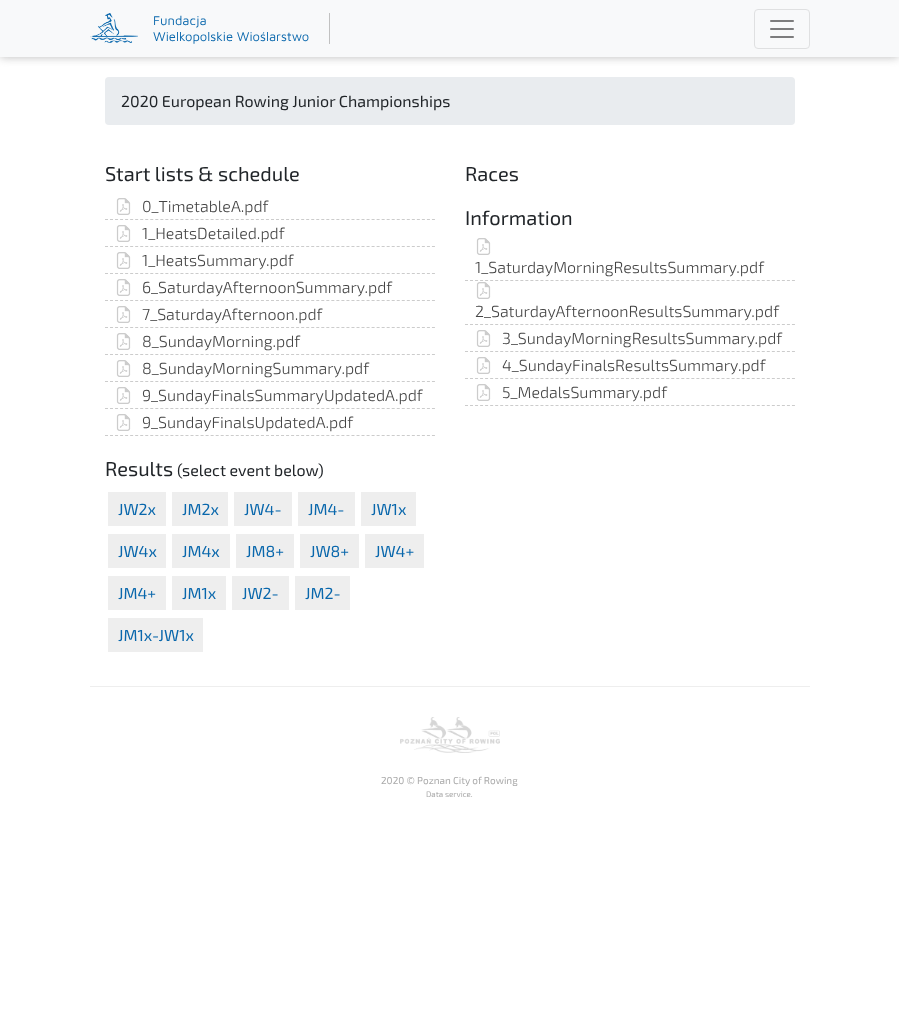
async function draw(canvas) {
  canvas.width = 899;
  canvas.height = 1019;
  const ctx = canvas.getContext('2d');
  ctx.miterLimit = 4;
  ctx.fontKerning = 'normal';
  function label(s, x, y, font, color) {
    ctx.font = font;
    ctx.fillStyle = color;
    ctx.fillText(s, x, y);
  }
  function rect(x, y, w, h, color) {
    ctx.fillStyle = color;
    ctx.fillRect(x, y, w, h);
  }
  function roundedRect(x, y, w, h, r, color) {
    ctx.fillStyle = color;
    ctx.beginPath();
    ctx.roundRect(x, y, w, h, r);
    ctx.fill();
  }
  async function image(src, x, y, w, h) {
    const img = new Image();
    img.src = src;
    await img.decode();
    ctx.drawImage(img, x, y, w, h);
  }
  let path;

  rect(0, 0, 899, 1019, '#fff');
  ctx.fillStyle = '#bbb';
  ctx.filter = 'blur(5px)';
  ctx.beginPath();
  ctx.rect(0, 0, 899, 57);
  ctx.fill();
  ctx.filter = 'none';
  rect(0, 0, 899, 57, '#f8f9fa');
  await image('assets/img1.png', 90, 13, 48, 30);
  rect(329, 13, 1, 31, '#c1c1c1');
  label('Fundacja', 153, 25, '13px Maven Pro', '#0967ac');
  label('Wielkopolskie Wioślarstwo', 153, 41, '13px Maven Pro', '#0967ac');
  ctx.beginPath();
  ctx.roundRect(754.5, 9.5, 55, 39, 3.5);
  ctx.strokeStyle = '#dfe0e1';
  ctx.stroke();
  await image('assets/img2.png', 770, 20, 24, 18);
  roundedRect(105, 77, 690, 48, 4, '#e9ecef');
  label('2020 European Rowing Junior Championships', 121, 107, '16px "Exo 2"', '#212529');
  label('Start lists & schedule', 105, 181, '20px "Exo 2"', '#212529');
  path = new Path2D('M105 219.5H435');
  ctx.strokeStyle = '#ccc';
  ctx.setLineDash([3, 2.03]);
  ctx.stroke(path);
  await image('assets/img3.png', 116, 198, 15, 17);
  label('0_TimetableA.pdf', 142, 212, '300 16px "Exo 2"', '#444');
  path = new Path2D('M105 246.5H435');
  ctx.stroke(path);
  await image('assets/img3.png', 116, 225, 15, 17);
  label('1_HeatsDetailed.pdf', 142, 239, '300 16px "Exo 2"', '#444');
  path = new Path2D('M105 273.5H435');
  ctx.stroke(path);
  await image('assets/img3.png', 116, 252, 15, 17);
  label('1_HeatsSummary.pdf', 142, 266, '300 16px "Exo 2"', '#444');
  path = new Path2D('M105 300.5H435');
  ctx.stroke(path);
  await image('assets/img3.png', 116, 279, 15, 17);
  label('6_SaturdayAfternoonSummary.pdf', 142, 293, '300 16px "Exo 2"', '#444');
  path = new Path2D('M105 327.5H435');
  ctx.stroke(path);
  await image('assets/img3.png', 116, 306, 15, 17);
  label('7_SaturdayAfternoon.pdf', 142, 320, '300 16px "Exo 2"', '#444');
  path = new Path2D('M105 354.5H435');
  ctx.stroke(path);
  await image('assets/img3.png', 116, 333, 15, 17);
  label('8_SundayMorning.pdf', 142, 347, '300 16px "Exo 2"', '#444');
  path = new Path2D('M105 381.5H435');
  ctx.stroke(path);
  await image('assets/img3.png', 116, 360, 15, 17);
  label('8_SundayMorningSummary.pdf', 142, 374, '300 16px "Exo 2"', '#444');
  path = new Path2D('M105 408.5H435');
  ctx.stroke(path);
  await image('assets/img3.png', 116, 387, 15, 17);
  label('9_SundayFinalsSummaryUpdatedA.pdf', 142, 401, '300 16px "Exo 2"', '#444');
  path = new Path2D('M105 435.5H435');
  ctx.stroke(path);
  await image('assets/img3.png', 116, 414, 15, 17);
  label('9_SundayFinalsUpdatedA.pdf', 142, 428, '300 16px "Exo 2"', '#444');
  label('Results', 105, 476, '20px "Exo 2"', '#212529');
  label('(select event below)', 177, 476, '16px "Exo 2"', '#212529');
  rect(108, 492, 58, 34, '#eee');
  label('JW2x', 118, 515, '16px "Exo 2"', '#0967ac');
  rect(172, 492, 56, 34, '#eee');
  label('JM2x', 182, 515, '16px "Exo 2"', '#0967ac');
  rect(234, 492, 58, 34, '#eee');
  label('JW4-', 244, 515, '16px "Exo 2"', '#0967ac');
  rect(298, 492, 57, 34, '#eee');
  label('JM4-', 308, 515, '16px "Exo 2"', '#0967ac');
  rect(361, 492, 55, 34, '#eee');
  label('JW1x', 371, 515, '16px "Exo 2"', '#0967ac');
  rect(108, 534, 58, 34, '#eee');
  label('JW4x', 118, 557, '16px "Exo 2"', '#0967ac');
  rect(172, 534, 58, 34, '#eee');
  label('JM4x', 182, 557, '16px "Exo 2"', '#0967ac');
  rect(236, 534, 58, 34, '#eee');
  label('JM8+', 246, 557, '16px "Exo 2"', '#0967ac');
  rect(300, 534, 59, 34, '#eee');
  label('JW8+', 310, 557, '16px "Exo 2"', '#0967ac');
  rect(365, 534, 59, 34, '#eee');
  label('JW4+', 375, 557, '16px "Exo 2"', '#0967ac');
  rect(108, 576, 58, 34, '#eee');
  label('JM4+', 118, 599, '16px "Exo 2"', '#0967ac');
  rect(172, 576, 54, 34, '#eee');
  label('JM1x', 182, 599, '16px "Exo 2"', '#0967ac');
  rect(232, 576, 57, 34, '#eee');
  label('JW2-', 242, 599, '16px "Exo 2"', '#0967ac');
  rect(295, 576, 55, 34, '#eee');
  label('JM2-', 305, 599, '16px "Exo 2"', '#0967ac');
  rect(108, 618, 95, 34, '#eee');
  label('JM1x-JW1x', 118, 641, '16px "Exo 2"', '#0967ac');
  label('Races', 465, 181, '20px "Exo 2"', '#212529');
  label('Information', 465, 225, '20px "Exo 2"', '#212529');
  path = new Path2D('M465 280.5H795');
  ctx.stroke(path);
  await image('assets/img4.png', 476, 238, 15, 17);
  label('1_SaturdayMorningResultsSummary.pdf', 475, 273, '300 16px "Exo 2"', '#444');
  path = new Path2D('M465 324.5H795');
  ctx.stroke(path);
  await image('assets/img5.png', 476, 282, 15, 17);
  label('2_SaturdayAfternoonResultsSummary.pdf', 475, 317, '300 16px "Exo 2"', '#444');
  path = new Path2D('M465 351.5H795');
  ctx.stroke(path);
  await image('assets/img4.png', 476, 330, 15, 17);
  label('3_SundayMorningResultsSummary.pdf', 502, 344, '300 16px "Exo 2"', '#444');
  path = new Path2D('M465 378.5H795');
  ctx.stroke(path);
  await image('assets/img4.png', 476, 357, 15, 17);
  label('4_SundayFinalsResultsSummary.pdf', 502, 371, '300 16px "Exo 2"', '#444');
  path = new Path2D('M465 405.5H795');
  ctx.stroke(path);
  await image('assets/img5.png', 476, 384, 15, 17);
  label('5_MedalsSummary.pdf', 502, 398, '300 16px "Exo 2"', '#444');
  rect(90, 686, 720, 1, '#eee');
  await image('assets/img6.png', 400, 717, 100, 36);
  label('2020 © Poznan City of Rowing', 381, 784, '10px "Exo 2"', '#aaa');
  label('Data service.', 426, 797, '8px "Exo 2"', '#aaa');
}

draw(document.querySelector('canvas'));
